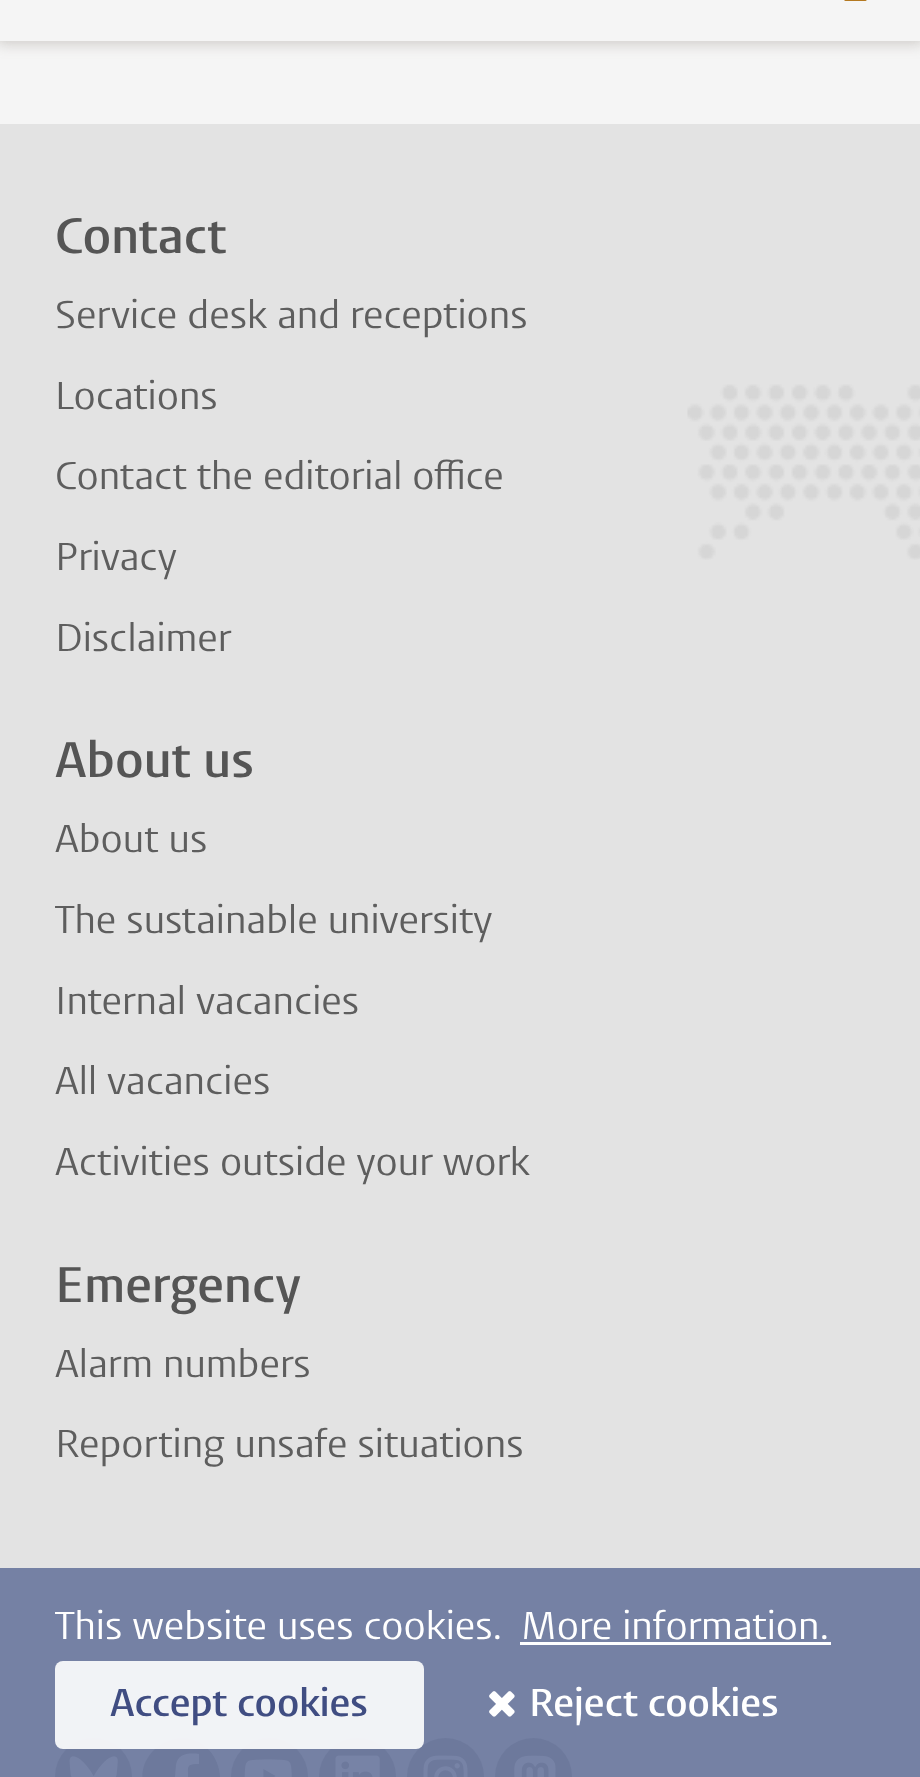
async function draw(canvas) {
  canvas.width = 920;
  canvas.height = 1777;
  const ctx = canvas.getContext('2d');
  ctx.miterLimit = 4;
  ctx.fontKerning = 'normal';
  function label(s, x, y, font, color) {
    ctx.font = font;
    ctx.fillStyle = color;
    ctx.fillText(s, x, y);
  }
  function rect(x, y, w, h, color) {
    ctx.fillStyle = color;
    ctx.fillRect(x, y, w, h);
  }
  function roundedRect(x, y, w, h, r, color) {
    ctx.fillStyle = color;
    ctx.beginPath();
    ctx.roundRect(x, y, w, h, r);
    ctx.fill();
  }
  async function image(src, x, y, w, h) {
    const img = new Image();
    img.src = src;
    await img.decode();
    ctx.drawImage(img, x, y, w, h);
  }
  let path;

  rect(0, 0, 920, 1777, '#f5f5f5');
  ctx.fillStyle = '#786e644d';
  ctx.filter = 'blur(7px)';
  ctx.beginPath();
  ctx.rect(-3, -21, 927, 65);
  ctx.fill();
  ctx.filter = 'none';
  rect(0, 0, 920, 41, '#f5f5f5');
  await image('assets/img1.png', 844, 0, 23, 1);
  rect(0, 124, 920, 1653, '#e3e3e3');
  await image('assets/img2.png', 687, 384, 233, 176);
  label('Contact', 55, 253, '600 49.5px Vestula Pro', '#555');
  label('Service desk and receptions', 55, 328, '38.5px Vestula Pro', '#5e5e5e');
  label('Locations', 55, 409, '38.5px Vestula Pro', '#5e5e5e');
  label('Contact the editorial office', 55, 489, '38.5px Vestula Pro', '#5e5e5e');
  label('Privacy', 55, 570, '38.5px Vestula Pro', '#5e5e5e');
  label('Disclaimer', 55, 651, '38.5px Vestula Pro', '#5e5e5e');
  label('About us', 55, 777, '600 49.5px Vestula Pro', '#555');
  label('About us', 55, 852, '38.5px Vestula Pro', '#5e5e5e');
  label('The sustainable university', 55, 933, '38.5px Vestula Pro', '#5e5e5e');
  label('Internal vacancies', 55, 1014, '38.5px Vestula Pro', '#5e5e5e');
  label('All vacancies', 55, 1094, '38.5px Vestula Pro', '#5e5e5e');
  label('Activities outside your work', 55, 1175, '38.5px Vestula Pro', '#5e5e5e');
  label('Emergency', 55, 1302, '600 49.5px Vestula Pro', '#555');
  label('Alarm numbers', 55, 1377, '38.5px Vestula Pro', '#5e5e5e');
  label('Reporting unsafe situations', 55, 1457, '38.5px Vestula Pro', '#5e5e5e');
  ctx.fillStyle = '#9a9a9a';
  ctx.beginPath();
  ctx.arc(93.5, 1776.5, 38.5, 0, 2 * Math.PI);
  ctx.fill();
  await image('assets/img3.png', 69, 1756, 49, 21);
  ctx.fillStyle = '#fff';
  ctx.beginPath();
  ctx.arc(181.5, 1776.5, 38.5, 0, 2 * Math.PI);
  ctx.fill();
  ctx.fillStyle = '#9a9a9a';
  path = new Path2D('M220 1777C220 1768 216 1758 210 1751C181 1719 128 1753 146 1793C152 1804 163 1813 175 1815V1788H166V1777H175L176 1765C178 1753 189 1753 199 1754V1764C186 1764 188 1766 188 1777H198L196 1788H188V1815C206 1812 220 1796 220 1777Z');
  ctx.fill(path);
  ctx.beginPath();
  ctx.arc(269.5, 1776.5, 38.5, 0, 2 * Math.PI);
  ctx.fill();
  await image('assets/img4.png', 244, 1759, 48, 18);
  ctx.beginPath();
  ctx.arc(357.5, 1776.5, 38.5, 0, 2 * Math.PI);
  ctx.fill();
  await image('assets/img5.png', 335, 1755, 45, 22);
  ctx.beginPath();
  ctx.arc(445.5, 1776.5, 38.5, 0, 2 * Math.PI);
  ctx.fill();
  await image('assets/img6.png', 423, 1755, 45, 22);
  ctx.beginPath();
  ctx.arc(533.5, 1776.5, 38.5, 0, 2 * Math.PI);
  ctx.fill();
  await image('assets/img7.png', 514, 1755, 42, 22);
  rect(0, 1568, 920, 209, '#68769ce6');
  label('This website uses cookies.', 55, 1639, '38.5px Vestula Pro', '#fff');
  label('More information.', 521, 1639, '38.5px Vestula Pro', '#fff');
  rect(520, 1642, 311, 3, '#fff');
  roundedRect(55, 1661, 369, 88, 8, '#ffffffe6');
  label('Accept cookies', 110, 1716, '600 38.5px Vestula Pro', '#404d82');
  await image('assets/img8.png', 489, 1691, 26, 26);
  label('Reject cookies', 529, 1716, '600 38.5px Vestula Pro', '#fff');
}

draw(document.querySelector('canvas'));
